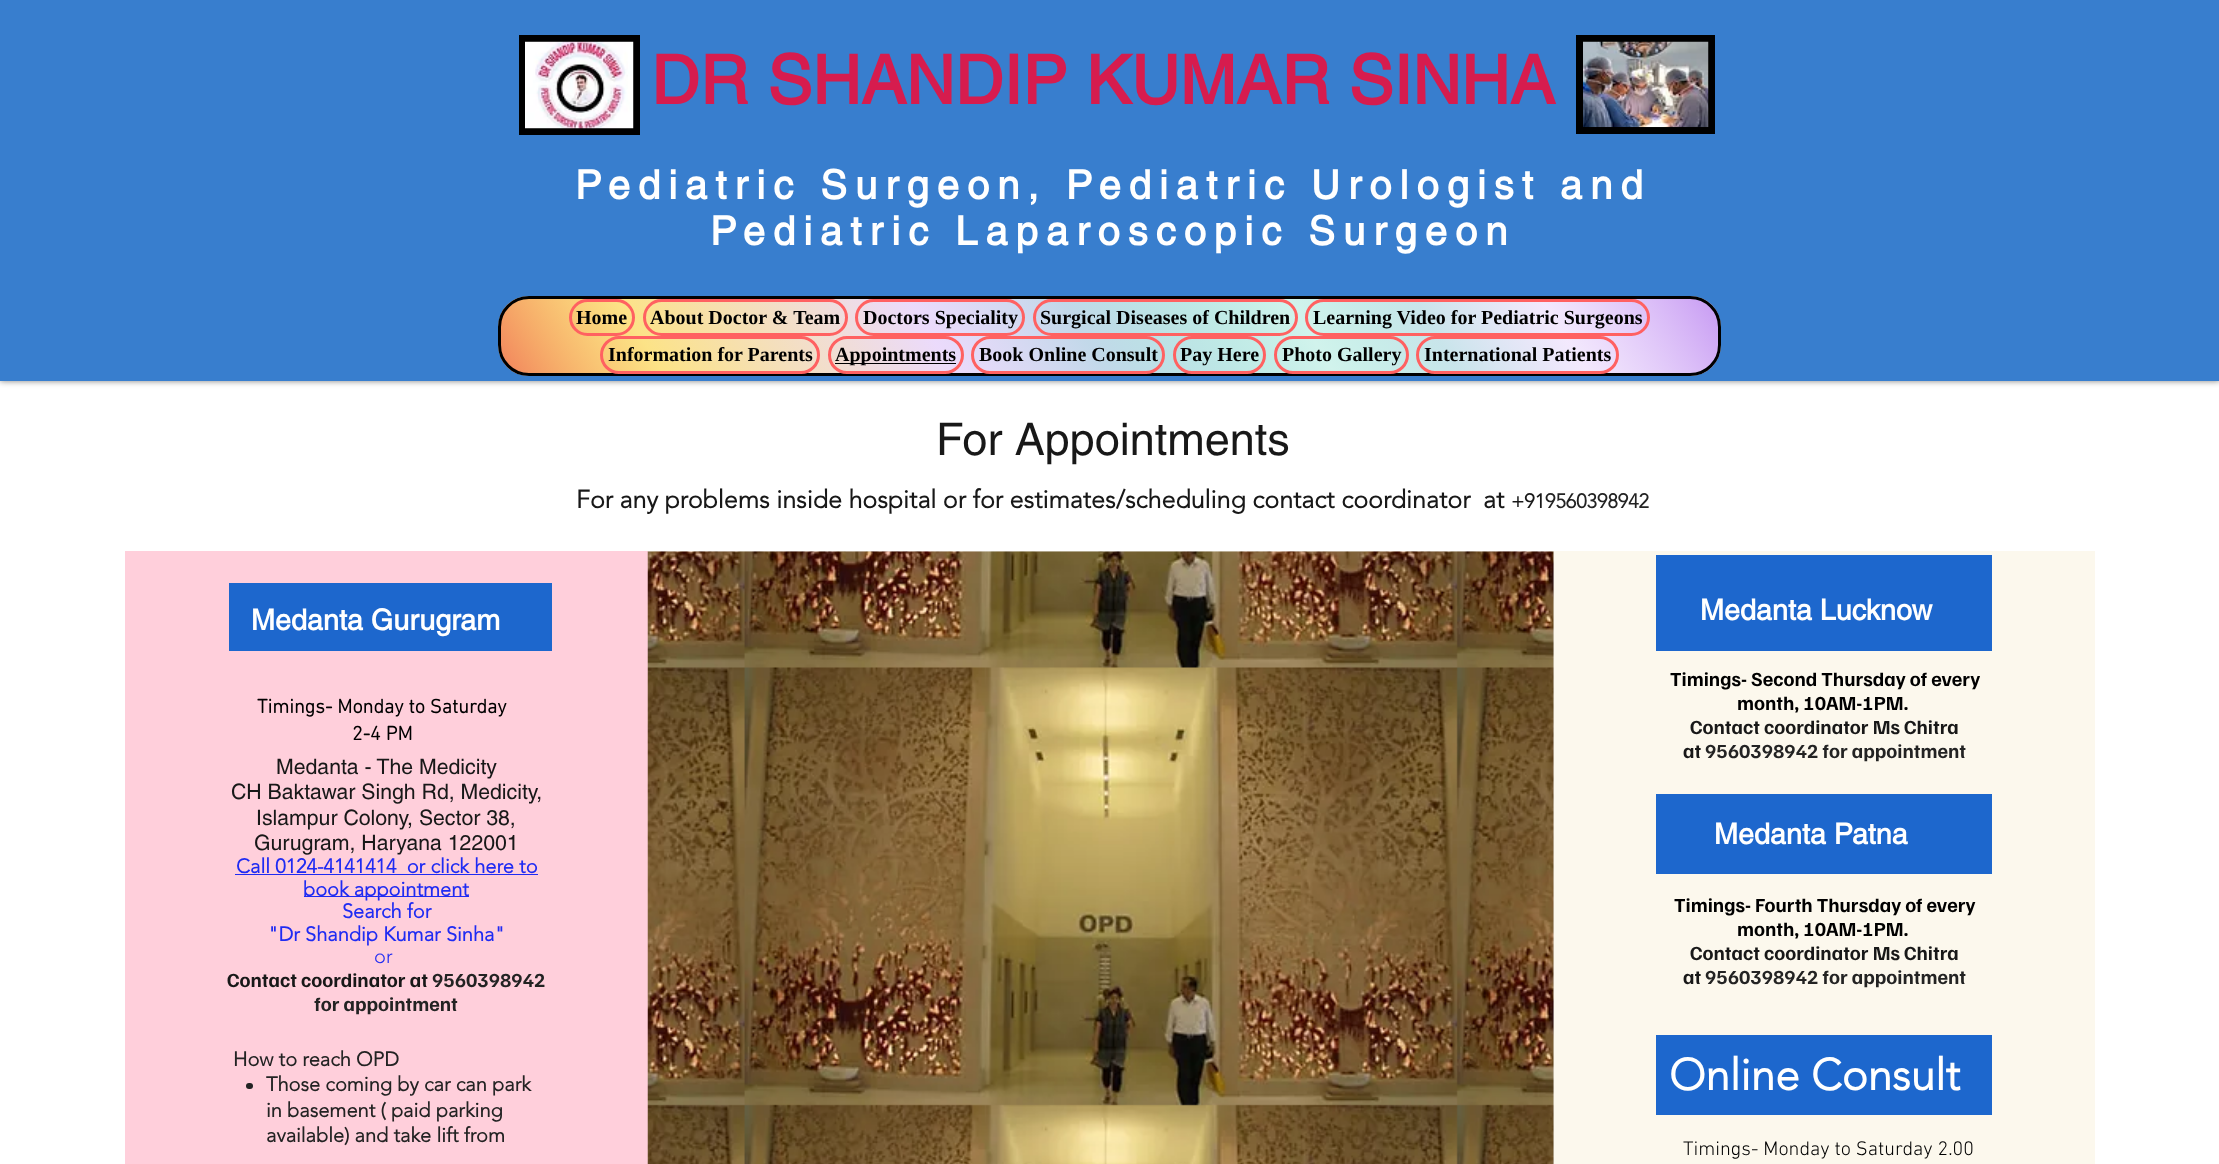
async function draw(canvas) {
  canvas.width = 2219;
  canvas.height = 1164;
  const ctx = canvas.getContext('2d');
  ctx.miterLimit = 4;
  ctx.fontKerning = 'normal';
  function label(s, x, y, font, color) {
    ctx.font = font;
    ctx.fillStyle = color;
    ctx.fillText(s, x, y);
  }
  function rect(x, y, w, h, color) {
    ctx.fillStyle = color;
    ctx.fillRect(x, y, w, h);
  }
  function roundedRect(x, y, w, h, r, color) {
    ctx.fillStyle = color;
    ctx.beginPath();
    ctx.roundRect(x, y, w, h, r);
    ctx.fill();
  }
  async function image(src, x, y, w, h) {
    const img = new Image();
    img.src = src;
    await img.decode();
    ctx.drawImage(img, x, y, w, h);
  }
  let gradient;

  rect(0, 0, 2219, 1164, '#fff');
  ctx.fillStyle = '#00000080';
  ctx.filter = 'blur(3px)';
  ctx.beginPath();
  ctx.rect(0, 0, 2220, 381);
  ctx.fill();
  ctx.filter = 'none';
  rect(0, 0, 2219, 381, '#387ece');
  rect(519, 35, 121, 100, '#000');
  await image('assets/img1.png', 525, 41, 109, 88);
  label('DR SHANDIP KUMAR SINHA', 651, 104, 'bold 67.5px helvetica', '#d61c4e');
  rect(1576, 35, 139, 99, '#000');
  await image('assets/img2.png', 1583, 41, 126, 87);
  ctx.letterSpacing = '8px';
  label('Pediatric Surgeon, Pediatric Urologist and', 575, 199, 'bold 40px helvetica', '#fff');
  label('Pediatric Laparoscopic Surgeon', 710, 245, 'bold 40px helvetica', '#fff');
  roundedRect(498, 296, 1223, 80, 31, '#fff');
  ctx.save();
  ctx.beginPath();
  ctx.roundRect(498, 296, 1223, 80, 31);
  ctx.clip();
  gradient = ctx.createLinearGradient(654, 621, 1564, 52);
  gradient.addColorStop(0, '#ed5829c2');
  gradient.addColorStop(0.13, '#f9c30078');
  gradient.addColorStop(0.36, '#d2acf770');
  gradient.addColorStop(0.48, '#8cb6d687');
  gradient.addColorStop(0.66, '#00bd972e');
  gradient.addColorStop(0.76, '#69b5c75c');
  gradient.addColorStop(0.86, '#d2acf745');
  gradient.addColorStop(0.99, '#ba83f0c2');
  ctx.fillStyle = gradient;
  ctx.fillRect(500, 299, 1219, 75);
  ctx.restore();
  ctx.beginPath();
  ctx.roundRect(499.5, 297.5, 1220, 77, 29.5);
  ctx.strokeStyle = '#000';
  ctx.lineWidth = 3;
  ctx.stroke();
  ctx.beginPath();
  ctx.roundRect(570.5, 300.5, 63, 34, 17);
  ctx.strokeStyle = '#ff6161';
  ctx.stroke();
  ctx.letterSpacing = '0px';
  label('Home', 576, 324, 'bold 20px Liberation Serif', '#000');
  ctx.beginPath();
  ctx.roundRect(644.5, 300.5, 202, 34, 17);
  ctx.stroke();
  label('About Doctor & Team', 650, 324, 'bold 20px Liberation Serif', '#000');
  ctx.beginPath();
  ctx.roundRect(856.5, 300.5, 167, 34, 17);
  ctx.stroke();
  label('Doctors Speciality', 863, 324, 'bold 20px Liberation Serif', '#000');
  ctx.beginPath();
  ctx.roundRect(1034.5, 300.5, 262, 34, 17);
  ctx.stroke();
  label('Surgical Diseases of Children', 1040, 324, 'bold 20px Liberation Serif', '#000');
  ctx.beginPath();
  ctx.roundRect(1306.5, 300.5, 342, 34, 17);
  ctx.stroke();
  label('Learning Video for Pediatric Surgeons', 1313, 324, 'bold 20px Liberation Serif', '#000');
  ctx.beginPath();
  ctx.roundRect(601.5, 337.5, 217, 35, 17.5);
  ctx.stroke();
  label('Information for Parents', 608, 361, 'bold 20px Liberation Serif', '#000');
  ctx.beginPath();
  ctx.roundRect(829.5, 337.5, 133, 35, 17.5);
  ctx.stroke();
  rect(835, 363, 121, 1, '#000');
  label('Appointments', 835, 361, 'bold 20px Liberation Serif', '#000');
  ctx.beginPath();
  ctx.roundRect(972.5, 337.5, 191, 35, 17.5);
  ctx.stroke();
  label('Book Online Consult', 979, 361, 'bold 20px Liberation Serif', '#000');
  ctx.beginPath();
  ctx.roundRect(1174.5, 337.5, 90, 35, 17.5);
  ctx.stroke();
  label('Pay Here', 1180, 361, 'bold 20px Liberation Serif', '#000');
  ctx.beginPath();
  ctx.roundRect(1275.5, 337.5, 132, 35, 17.5);
  ctx.stroke();
  label('Photo Gallery', 1282, 361, 'bold 20px Liberation Serif', '#000');
  ctx.beginPath();
  ctx.roundRect(1417.5, 337.5, 200, 35, 17.5);
  ctx.stroke();
  label('International Patients', 1424, 361, 'bold 20px Liberation Serif', '#000');
  label('For Appointments', 936, 455, '45px helvetica', '#181818');
  label('For any problems inside hospital or for estimates/scheduling contact coordinator', 576, 508, 'bold 25px "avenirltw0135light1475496"', '#181818');
  label('at', 1483, 508, 'bold 25px "avenirltw0135light1475496"', '#181818');
  label('+91', 1511, 508, 'bold 20px "avenirltw0135light1475496"', '#181818');
  label('9560398942', 1545, 508, 'bold 20px "avenirltw0135light1475496"', '#232323');
  rect(125, 551, 523, 613, '#ffcfdb');
  rect(229, 583, 323, 68, '#1d67cd');
  label('Medanta Gurugram', 251, 630, 'bold 28.75px helvetica', '#fff');
  label('Timings- Monday to Saturday', 257, 713, 'bold 20px "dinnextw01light"', '#000');
  label('2-4 PM', 352, 740, 'bold 20px "dinnextw01light"', '#000');
  label('Medanta - The Medicity', 276, 774, '21.25px helvetica', '#181818');
  label('CH Baktawar Singh Rd, Medicity,', 231, 799, '21.25px helvetica', '#181818');
  label('Islampur Colony, Sector 38,', 256, 825, '21.25px helvetica', '#181818');
  label('Gurugram, Haryana 122001', 254, 850, '21.25px helvetica', '#181818');
  label('Call 0124-4141414  or click here to', 236, 873, 'bold 20px "avenirltw0135light1475496"', '#1f2bf3');
  rect(235, 874, 303, 1, '#1f2bf3');
  rect(304, 896, 165, 1, '#1f2bf3');
  label('book appointment', 303, 896, 'bold 20px "avenirltw0135light1475496"', '#1f2bf3');
  label('Search for', 342, 918, 'bold 20px "avenirltw0135light1475496"', '#1f2bf3');
  label('"Dr Shandip Kumar Sinha"', 268, 941, 'bold 20px "avenirltw0135light1475496"', '#1f2bf3');
  label('or', 374, 963, '300 20px "avenirltw0135light1475496"', '#1f2bf3');
  label('Contact coordinator at', 227, 987, 'bold 20px Familjen Grotesk', '#181818');
  label('9560398942', 432, 987, 'bold 20px Familjen Grotesk', '#232323');
  label('for appointment', 314, 1011, 'bold 20px Familjen Grotesk', '#232323');
  label('How to reach OPD', 233, 1066, 'bold 20px "avenirltw0135light1475496"', '#232323');
  roundedRect(246, 1083, 7, 6, 3, '#232323');
  label('Those coming by car can park', 266, 1091, 'bold 20px "avenirltw0135light1475496"', '#232323');
  label('in basement ( paid parking', 266, 1117, 'bold 20px "avenirltw0135light1475496"', '#232323');
  label('available) and take lift from', 266, 1142, 'bold 20px "avenirltw0135light1475496"', '#232323');
  rect(648, 551, 906, 613, '#fafafa');
  await image('assets/img3.png', 647, 551, 907, 613);
  rect(1554, 551, 541, 613, '#fcf8ed');
  rect(1656, 555, 336, 96, '#1d67cd');
  label('Medanta Lucknow', 1700, 620, 'bold 28.75px helvetica', '#fff');
  label('Timings- Second Thursday of every', 1670, 686, 'bold 20px Familjen Grotesk', '#000');
  label('month, 10AM-1PM.', 1737, 710, 'bold 20px Familjen Grotesk', '#000');
  label('Contact coordinator Ms Chitra', 1690, 734, 'bold 20px Familjen Grotesk', '#181818');
  label('at', 1683, 758, 'bold 20px Familjen Grotesk', '#181818');
  label('9560398942 for appointment', 1705, 758, 'bold 20px Familjen Grotesk', '#232323');
  rect(1656, 794, 336, 80, '#1d67cd');
  label('Medanta Patna', 1714, 844, 'bold 28.75px helvetica', '#fff');
  label('Timings- Fourth Thursday of every', 1674, 912, 'bold 20px Familjen Grotesk', '#000');
  label('month, 10AM-1PM.', 1737, 936, 'bold 20px Familjen Grotesk', '#000');
  label('Contact coordinator Ms Chitra', 1690, 960, 'bold 20px Familjen Grotesk', '#181818');
  label('at', 1683, 984, 'bold 20px Familjen Grotesk', '#181818');
  label('9560398942 for appointment', 1705, 984, 'bold 20px Familjen Grotesk', '#232323');
  rect(1656, 1035, 336, 80, '#1d67cd');
  label('Online Consult', 1669, 1090, 'bold 43.75px "avenirltw0135light1475496"', '#fff');
  label('Timings- Monday to Saturday 2.00', 1683, 1155, '300 20px "dinnextw01light"', '#000');
}

draw(document.querySelector('canvas'));
